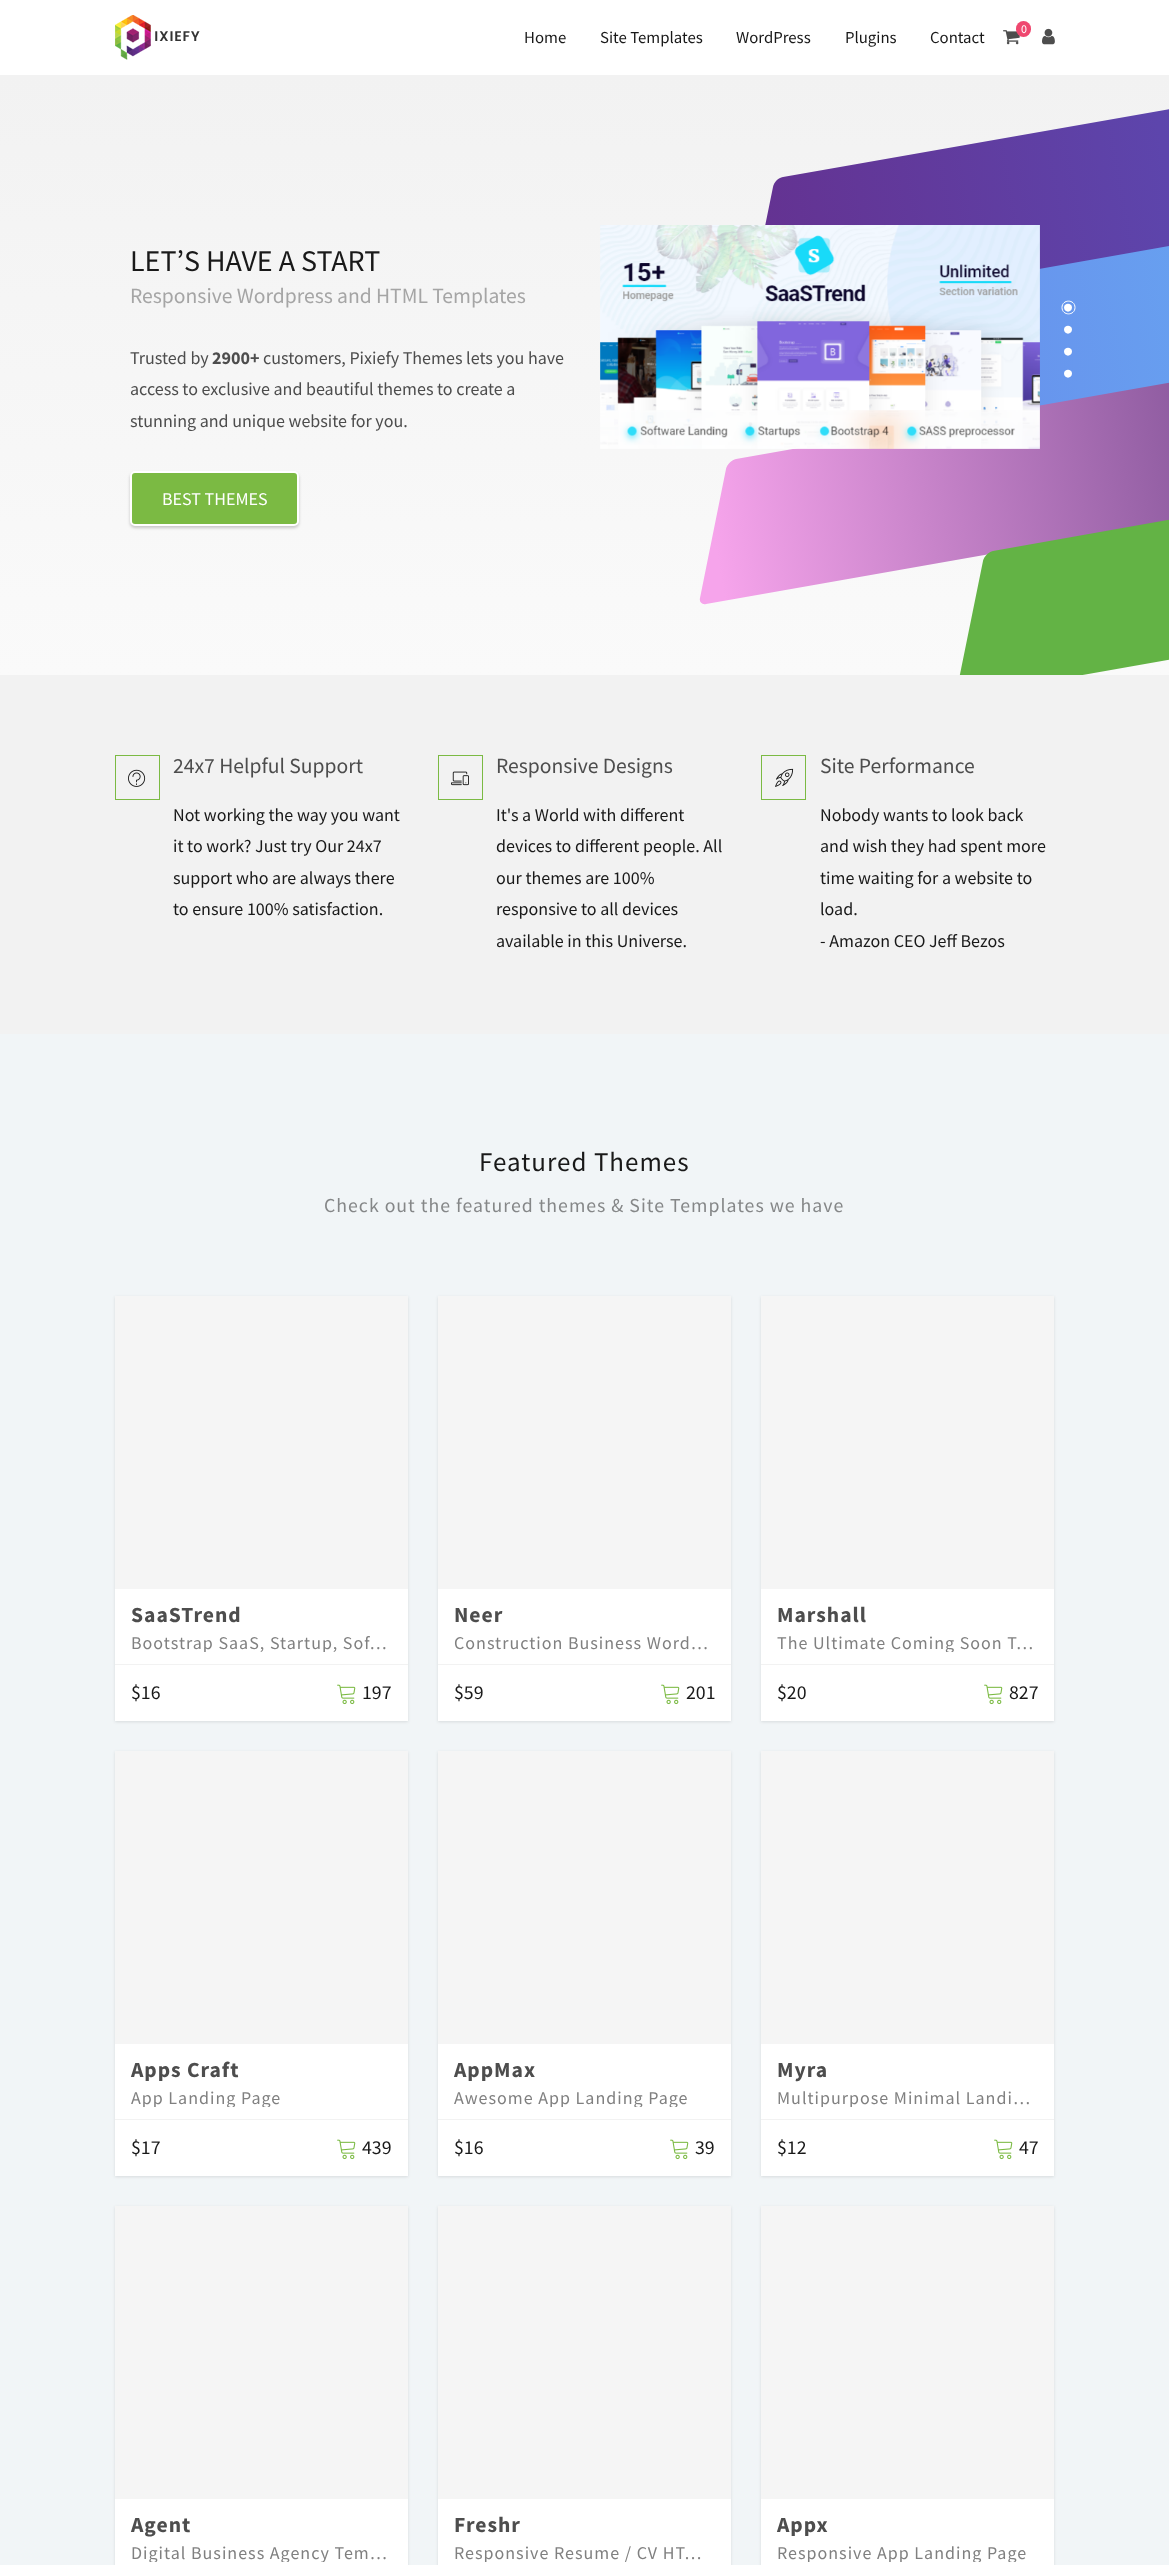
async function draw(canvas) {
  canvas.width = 1169;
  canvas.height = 2565;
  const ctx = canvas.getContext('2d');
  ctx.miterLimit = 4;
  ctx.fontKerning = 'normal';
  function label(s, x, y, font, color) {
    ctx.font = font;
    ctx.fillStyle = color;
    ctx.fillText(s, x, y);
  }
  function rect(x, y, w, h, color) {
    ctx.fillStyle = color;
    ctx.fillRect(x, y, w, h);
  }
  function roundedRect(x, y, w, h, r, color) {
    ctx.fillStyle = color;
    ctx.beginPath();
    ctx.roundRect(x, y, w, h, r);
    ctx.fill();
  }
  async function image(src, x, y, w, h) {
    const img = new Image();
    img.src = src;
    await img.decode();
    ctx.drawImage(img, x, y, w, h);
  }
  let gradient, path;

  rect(0, 0, 1169, 2565, '#fff');
  await image('assets/img1.png', 115, 15, 85, 45);
  await image('assets/img2.png', 1003, 30, 17, 15);
  roundedRect(1016, 21, 15, 16, 7.5, '#ef476f');
  label('0', 1021, 33, '12px Source Sans Pro', '#fff');
  await image('assets/img3.png', 1042, 28, 13, 17);
  label('Home', 524, 43, '16.75px Source Sans Pro', '#191919');
  label('Site Templates', 600, 43, '16.75px Source Sans Pro', '#191919');
  label('WordPress', 736, 43, '16.75px Source Sans Pro', '#191919');
  label('Plugins', 845, 43, '16.75px Source Sans Pro', '#191919');
  label('Contact', 930, 43, '16.75px Source Sans Pro', '#191919');
  gradient = ctx.createLinearGradient(585, 75, 585, 675);
  gradient.addColorStop(0, '#f2f2f2');
  gradient.addColorStop(1, '#fafafa');
  ctx.fillStyle = gradient;
  ctx.fillRect(0, 75, 1169, 600);
  label('LET’S HAVE A START', 130, 271, '30px Source Sans Pro', '#191919');
  label('Responsive Wordpress and HTML Templates', 130, 303, '21.6px Source Sans Pro', '#a5a5a5');
  label('Trusted by', 130, 364, '18px Source Sans Pro', '#4d4d4d');
  label('2900+', 212, 364, 'bold 18px Source Sans Pro', '#4d4d4d');
  label('customers, Pixiefy Themes lets you have', 263, 364, '18px Source Sans Pro', '#4d4d4d');
  label('access to exclusive and beautiful themes to create a', 130, 395, '18px Source Sans Pro', '#4d4d4d');
  label('stunning and unique website for you.', 130, 427, '18px Source Sans Pro', '#4d4d4d');
  ctx.fillStyle = '#00000033';
  ctx.filter = 'blur(1.5px)';
  ctx.beginPath();
  ctx.roundRect(130, 473, 169, 55, 5);
  ctx.fill();
  ctx.filter = 'none';
  ctx.fillStyle = '#7bba43';
  ctx.beginPath();
  ctx.roundRect(131, 472, 167, 53, 4);
  ctx.fill();
  ctx.strokeStyle = '#fff';
  ctx.lineWidth = 2;
  ctx.stroke();
  label('BEST THEMES', 162, 505, '18px Source Sans Pro', '#fff');
  gradient = ctx.createLinearGradient(760, 251, 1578, 107);
  gradient.addColorStop(0, '#643291');
  gradient.addColorStop(1, '#5658c7');
  ctx.fillStyle = gradient;
  path = new Path2D('M783 177L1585 36C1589 35 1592 38 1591 42L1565 171C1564 176 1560 180 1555 181L753 322C749 323 746 320 747 315L773 187C774 182 778 178 783 177Z');
  ctx.fill(path);
  gradient = ctx.createLinearGradient(818, 378, 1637, 233);
  gradient.addColorStop(0, '#6788ea');
  gradient.addColorStop(1, '#68bcf7');
  ctx.fillStyle = gradient;
  path = new Path2D('M841 304L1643 162C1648 161 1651 165 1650 169L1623 298C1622 302 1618 307 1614 307L811 449C807 450 804 447 805 442L831 313C832 309 837 304 841 304Z');
  ctx.fill(path);
  gradient = ctx.createLinearGradient(713, 533, 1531, 389);
  gradient.addColorStop(0, '#f6a4eb');
  gradient.addColorStop(1, '#44286b');
  ctx.fillStyle = gradient;
  path = new Path2D('M736 459L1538 318C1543 317 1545 320 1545 325L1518 453C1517 458 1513 462 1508 463L706 604C702 605 699 602 700 598L726 469C727 464 732 460 736 459Z');
  ctx.fill(path);
  await image('assets/img4.png', 600, 225, 440, 224);
  ctx.fillStyle = '#fff';
  path = new Path2D('M1072 307.5C1072 313 1064 313 1064 307.5C1064 302.5 1072 302.5 1072 307.5Z');
  ctx.fill(path);
  path = new Path2D('M1075 307.5C1075 316 1062 316 1062 307.5C1062 299 1075 299 1075 307.5Z');
  ctx.lineWidth = 1;
  ctx.stroke(path);
  path = new Path2D('M1072 329.5C1072 335 1064 335 1064 329.5C1064 324.5 1072 324.5 1072 329.5ZM1072 351.5C1072 357 1064 357 1064 351.5C1064 346.5 1072 346.5 1072 351.5ZM1072 373.5C1072 379 1064 379 1064 373.5C1064 368.5 1072 368.5 1072 373.5Z');
  ctx.fill(path);
  ctx.save();
  ctx.beginPath();
  ctx.rect(0, 75, 1169, 600);
  ctx.clip();
  ctx.fillStyle = '#63b345';
  path = new Path2D('M993 551L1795 409C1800 409 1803 412 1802 416L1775 545C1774 550 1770 554 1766 555L963 696C959 697 956 694 957 689L983 561C984 556 989 552 993 551Z');
  ctx.fill(path);
  ctx.restore();
  rect(0, 675, 1169, 359, '#f2f2f2');
  ctx.strokeStyle = '#7bba43';
  ctx.strokeRect(115.5, 755.5, 44, 44);
  await image('assets/img5.png', 128, 769, 18, 18);
  label('24x7 Helpful Support', 173, 773, '21.6px Source Sans Pro', '#4d4d4d');
  label('Not working the way you want', 173, 821, '18px Source Sans Pro', '#191919');
  label('it to work? Just try Our 24x7', 173, 852, '18px Source Sans Pro', '#191919');
  label('support who are always there', 173, 884, '18px Source Sans Pro', '#191919');
  label('to ensure 100% satisfaction.', 173, 915, '18px Source Sans Pro', '#191919');
  ctx.strokeRect(438.5, 755.5, 44, 44);
  await image('assets/img6.png', 451, 771, 18, 15);
  label('Responsive Designs', 496, 773, '21.6px Source Sans Pro', '#4d4d4d');
  label('It\'s a World with different', 496, 821, '18px Source Sans Pro', '#191919');
  label('devices to different people. All', 496, 852, '18px Source Sans Pro', '#191919');
  label('our themes are 100%', 496, 884, '18px Source Sans Pro', '#191919');
  label('responsive to all devices', 496, 915, '18px Source Sans Pro', '#191919');
  label('available in this Universe.', 496, 947, '18px Source Sans Pro', '#191919');
  ctx.strokeRect(761.5, 755.5, 44, 44);
  await image('assets/img7.png', 775, 768, 19, 19);
  label('Site Performance', 820, 773, '21.6px Source Sans Pro', '#4d4d4d');
  label('Nobody wants to look back', 820, 821, '18px Source Sans Pro', '#191919');
  label('and wish they had spent more', 820, 852, '18px Source Sans Pro', '#191919');
  label('time waiting for a website to', 820, 884, '18px Source Sans Pro', '#191919');
  label('load.', 820, 915, '18px Source Sans Pro', '#191919');
  label('- Amazon CEO Jeff Bezos', 820, 947, '18px Source Sans Pro', '#191919');
  rect(0, 1034, 1169, 1531, '#f1f5f7');
  ctx.letterSpacing = '1px';
  label('Featured Themes', 479, 1171, '27px Source Sans Pro', '#191919');
  label('Check out the featured themes & Site Templates we have', 324, 1212, '19.8px Source Sans Pro', '#858788');
  ctx.fillStyle = '#0000001a';
  ctx.filter = 'blur(1.5px)';
  ctx.beginPath();
  ctx.rect(115, 1297, 293, 425);
  ctx.fill();
  ctx.filter = 'none';
  rect(115, 1589, 293, 132, '#fff');
  rect(115, 1296, 293, 293, '#f5f5f5');
  label('SaaSTrend', 131, 1622, 'bold 21.6px Source Sans Pro', '#4d4d4d');
  ctx.save();
  ctx.beginPath();
  ctx.rect(131, 1634, 261, 18);
  ctx.clip();
  label('Bootstrap SaaS, Startup, Sof…', 131, 1649, '18px Source Sans Pro', '#808080');
  ctx.restore();
  rect(115, 1664, 293, 1, '#f2f2f2');
  ctx.letterSpacing = '0px';
  label('$16', 131, 1699, '19.8px Source Sans Pro', '#191919');
  await image('assets/img8.png', 337, 1684, 19, 21);
  label('197', 362, 1699, '19.8px Source Sans Pro', '#191919');
  ctx.fillStyle = '#0000001a';
  ctx.filter = 'blur(1.5px)';
  ctx.beginPath();
  ctx.rect(438, 1297, 293, 425);
  ctx.fill();
  ctx.filter = 'none';
  rect(438, 1589, 293, 132, '#fff');
  rect(438, 1296, 293, 293, '#f5f5f5');
  ctx.letterSpacing = '1px';
  label('Neer', 454, 1622, 'bold 21.6px Source Sans Pro', '#4d4d4d');
  label('Construction Business Word…', 454, 1649, '18px Source Sans Pro', '#808080');
  rect(438, 1664, 293, 1, '#f2f2f2');
  ctx.letterSpacing = '0px';
  label('$59', 454, 1699, '19.8px Source Sans Pro', '#191919');
  await image('assets/img8.png', 661, 1684, 19, 21);
  label('201', 686, 1699, '19.8px Source Sans Pro', '#191919');
  ctx.fillStyle = '#0000001a';
  ctx.filter = 'blur(1.5px)';
  ctx.beginPath();
  ctx.rect(761, 1297, 293, 425);
  ctx.fill();
  ctx.filter = 'none';
  rect(761, 1589, 293, 132, '#fff');
  rect(761, 1296, 293, 293, '#f5f5f5');
  ctx.letterSpacing = '1px';
  label('Marshall', 777, 1622, 'bold 21.6px Source Sans Pro', '#4d4d4d');
  ctx.save();
  ctx.beginPath();
  ctx.rect(777, 1634, 261, 18);
  ctx.clip();
  label('The Ultimate Coming Soon T…', 777, 1649, '18px Source Sans Pro', '#808080');
  ctx.restore();
  rect(761, 1664, 293, 1, '#f2f2f2');
  ctx.letterSpacing = '0px';
  label('$20', 777, 1699, '19.8px Source Sans Pro', '#191919');
  await image('assets/img8.png', 984, 1684, 19, 21);
  label('827', 1009, 1699, '19.8px Source Sans Pro', '#191919');
  ctx.fillStyle = '#0000001a';
  ctx.filter = 'blur(1.5px)';
  ctx.beginPath();
  ctx.rect(115, 1752, 293, 425);
  ctx.fill();
  ctx.filter = 'none';
  rect(115, 2044, 293, 132, '#fff');
  rect(115, 1751, 293, 293, '#f5f5f5');
  ctx.letterSpacing = '1px';
  label('Apps Craft', 131, 2077, 'bold 21.6px Source Sans Pro', '#4d4d4d');
  ctx.save();
  ctx.beginPath();
  ctx.rect(131, 2089, 261, 18);
  ctx.clip();
  label('App Landing Page', 131, 2104, '18px Source Sans Pro', '#808080');
  ctx.restore();
  rect(115, 2119, 293, 1, '#f2f2f2');
  ctx.letterSpacing = '0px';
  label('$17', 131, 2154, '19.8px Source Sans Pro', '#191919');
  await image('assets/img8.png', 337, 2139, 19, 21);
  label('439', 362, 2154, '19.8px Source Sans Pro', '#191919');
  ctx.fillStyle = '#0000001a';
  ctx.filter = 'blur(1.5px)';
  ctx.beginPath();
  ctx.rect(438, 1752, 293, 425);
  ctx.fill();
  ctx.filter = 'none';
  rect(438, 2044, 293, 132, '#fff');
  rect(438, 1751, 293, 293, '#f5f5f5');
  ctx.letterSpacing = '1px';
  label('AppMax', 454, 2077, 'bold 21.6px Source Sans Pro', '#4d4d4d');
  ctx.save();
  ctx.beginPath();
  ctx.rect(454, 2089, 261, 18);
  ctx.clip();
  label('Awesome App Landing Page', 454, 2104, '18px Source Sans Pro', '#808080');
  ctx.restore();
  rect(438, 2119, 293, 1, '#f2f2f2');
  ctx.letterSpacing = '0px';
  label('$16', 454, 2154, '19.8px Source Sans Pro', '#191919');
  await image('assets/img8.png', 670, 2139, 19, 21);
  label('39', 695, 2154, '19.8px Source Sans Pro', '#191919');
  ctx.fillStyle = '#0000001a';
  ctx.filter = 'blur(1.5px)';
  ctx.beginPath();
  ctx.rect(761, 1752, 293, 425);
  ctx.fill();
  ctx.filter = 'none';
  rect(761, 2044, 293, 132, '#fff');
  rect(761, 1751, 293, 293, '#f5f5f5');
  ctx.letterSpacing = '1px';
  label('Myra', 777, 2077, 'bold 21.6px Source Sans Pro', '#4d4d4d');
  ctx.save();
  ctx.beginPath();
  ctx.rect(777, 2089, 261, 18);
  ctx.clip();
  label('Multipurpose Minimal Landi…', 777, 2104, '18px Source Sans Pro', '#808080');
  ctx.restore();
  rect(761, 2119, 293, 1, '#f2f2f2');
  ctx.letterSpacing = '0px';
  label('$12', 777, 2154, '19.8px Source Sans Pro', '#191919');
  await image('assets/img8.png', 994, 2139, 19, 21);
  label('47', 1019, 2154, '19.8px Source Sans Pro', '#191919');
  ctx.fillStyle = '#0000001a';
  ctx.filter = 'blur(1.5px)';
  ctx.beginPath();
  ctx.rect(115, 2207, 293, 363);
  ctx.fill();
  ctx.filter = 'none';
  rect(115, 2499, 293, 66, '#fff');
  rect(115, 2206, 293, 293, '#f5f5f5');
  ctx.letterSpacing = '1px';
  label('Agent', 131, 2532, 'bold 21.6px Source Sans Pro', '#4d4d4d');
  ctx.save();
  ctx.beginPath();
  ctx.rect(131, 2544, 261, 18);
  ctx.clip();
  label('Digital Business Agency Tem…', 131, 2559, '18px Source Sans Pro', '#808080');
  ctx.restore();
  ctx.fillStyle = '#0000001a';
  ctx.filter = 'blur(1.5px)';
  ctx.beginPath();
  ctx.rect(438, 2207, 293, 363);
  ctx.fill();
  ctx.filter = 'none';
  rect(438, 2499, 293, 66, '#fff');
  rect(438, 2206, 293, 293, '#f5f5f5');
  label('Freshr', 454, 2532, 'bold 21.6px Source Sans Pro', '#4d4d4d');
  ctx.save();
  ctx.beginPath();
  ctx.rect(454, 2544, 261, 18);
  ctx.clip();
  label('Responsive Resume / CV HT…', 454, 2559, '18px Source Sans Pro', '#808080');
  ctx.restore();
  ctx.fillStyle = '#0000001a';
  ctx.filter = 'blur(1.5px)';
  ctx.beginPath();
  ctx.rect(761, 2207, 293, 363);
  ctx.fill();
  ctx.filter = 'none';
  rect(761, 2499, 293, 66, '#fff');
  rect(761, 2206, 293, 293, '#f5f5f5');
  label('Appx', 777, 2532, 'bold 21.6px Source Sans Pro', '#4d4d4d');
  ctx.save();
  ctx.beginPath();
  ctx.rect(777, 2544, 261, 18);
  ctx.clip();
  label('Responsive App Landing Page', 777, 2559, '18px Source Sans Pro', '#808080');
  ctx.restore();
}

draw(document.querySelector('canvas'));
